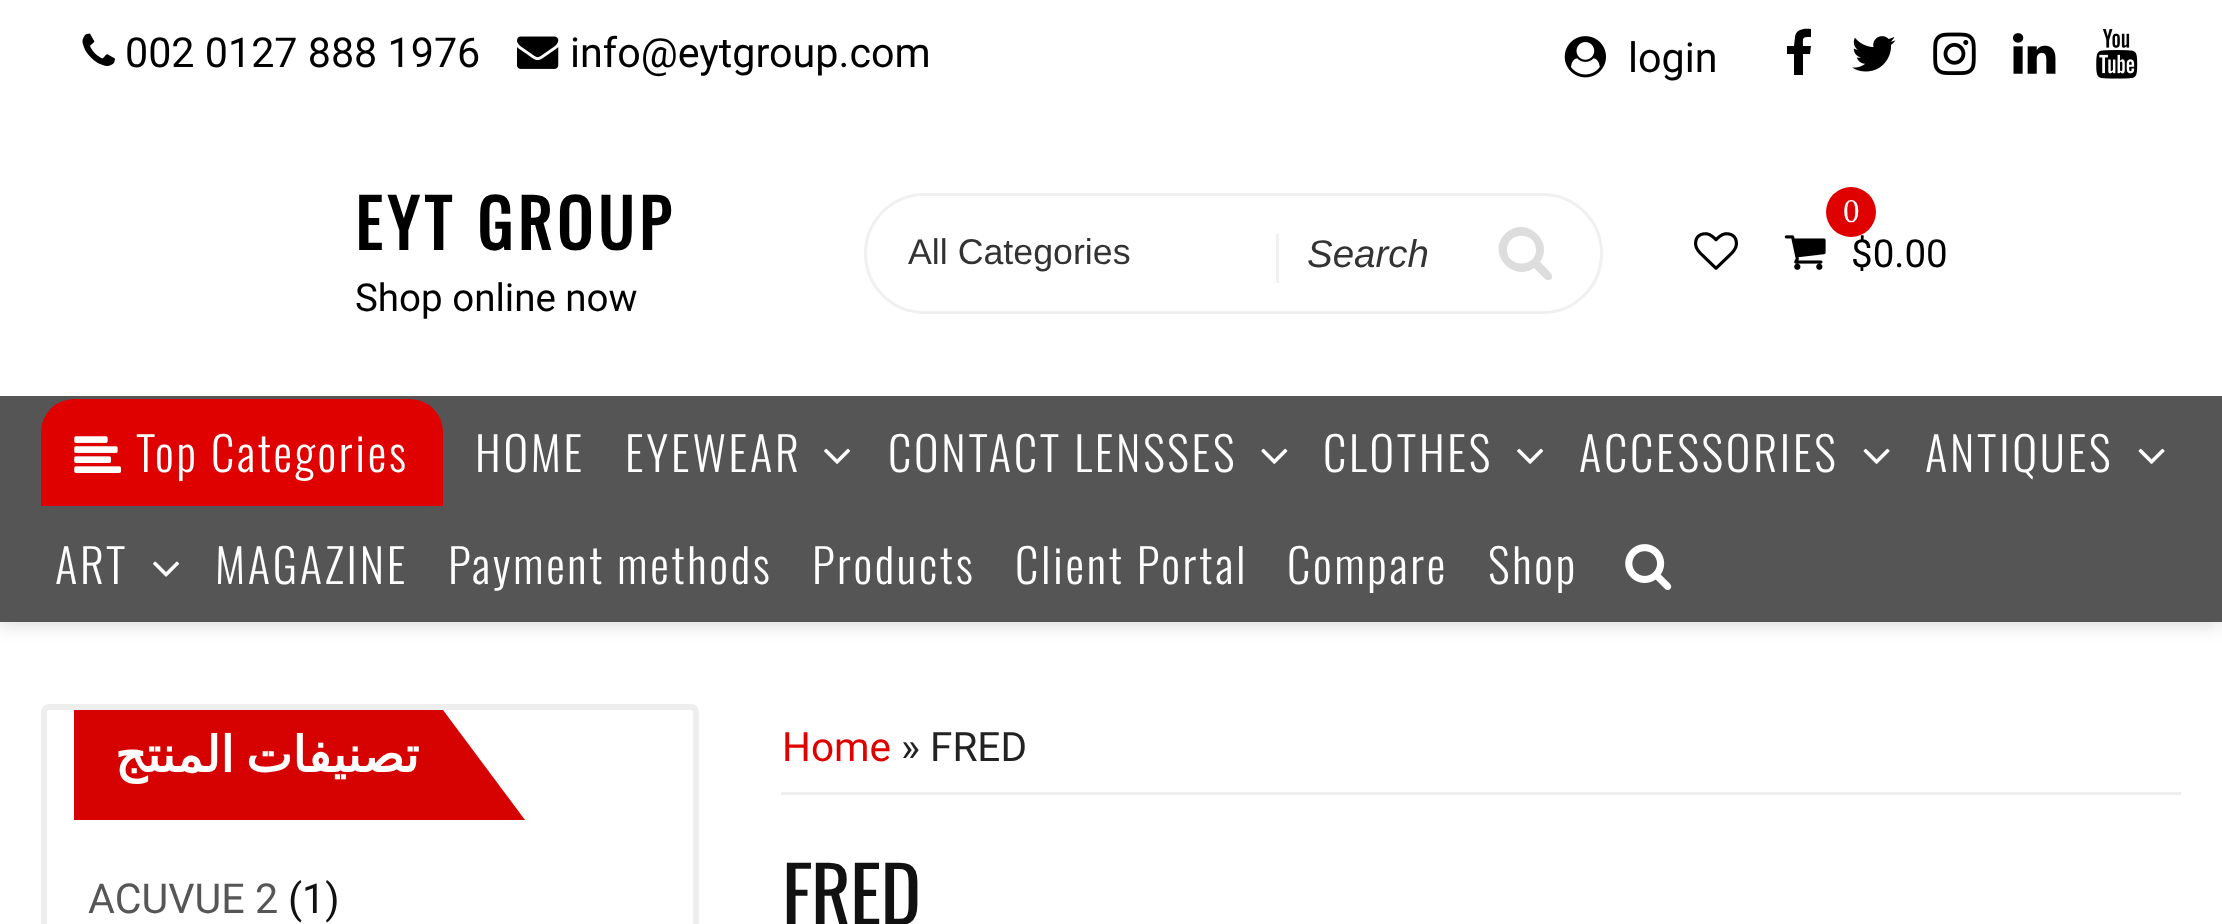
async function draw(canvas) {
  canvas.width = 2222;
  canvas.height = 924;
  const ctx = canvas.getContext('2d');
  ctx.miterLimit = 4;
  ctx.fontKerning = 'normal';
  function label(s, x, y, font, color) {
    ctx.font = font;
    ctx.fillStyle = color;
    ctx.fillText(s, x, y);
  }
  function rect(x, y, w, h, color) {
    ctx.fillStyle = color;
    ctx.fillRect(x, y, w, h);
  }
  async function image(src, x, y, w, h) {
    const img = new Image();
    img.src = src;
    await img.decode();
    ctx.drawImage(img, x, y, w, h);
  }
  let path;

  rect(0, 0, 2222, 924, '#fff');
  ctx.save();
  path = new Path2D('M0 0H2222V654H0ZM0 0H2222V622H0Z');
  ctx.clip(path, 'evenodd');
  ctx.fillStyle = '#6a6a6a47';
  ctx.filter = 'blur(9.5px)';
  ctx.beginPath();
  ctx.rect(0, 3, 2222, 621);
  ctx.fill();
  ctx.filter = 'none';
  ctx.restore();
  await image('assets/img1.png', 82, 33, 33, 33);
  label('002 0127 888 1976', 125, 67, '41.25px Roboto', '#000');
  await image('assets/img2.png', 517, 36, 42, 33);
  label('info@eytgroup.com', 570, 67, '41.25px Roboto', '#000');
  await image('assets/img3.png', 1564, 36, 42, 42);
  label('login', 1628, 72, '41.25px Roboto', '#000');
  path = new Path2D('M1811 29C1804 28 1796 29 1795 37L1794 46H1787V54H1794V75H1803V54H1810L1811 46H1803C1803 37 1802 37 1811 37Z');
  ctx.fill(path);
  await image('assets/img4.png', 1852, 36, 44, 36);
  await image('assets/img5.png', 1933, 32, 43, 44);
  await image('assets/img6.png', 2013, 33, 43, 41);
  await image('assets/img7.png', 2096, 29, 42, 50);
  ctx.letterSpacing = '5.25px';
  label('EYT GROUP', 355, 250, 'bold 66px Oswald', '#000');
  ctx.letterSpacing = '0px';
  label('Shop online now', 355, 311, '38.5px Roboto', '#000');
  ctx.beginPath();
  ctx.roundRect(865.5, 194.5, 736, 118, 59);
  ctx.strokeStyle = '#f0f0f0';
  ctx.lineWidth = 3;
  ctx.stroke();
  label('All Categories', 908, 264, '35.75px Liberation Sans', '#333');
  rect(1276, 234, 3, 49, '#f0f0f0');
  label('Search', 1307, 267, 'italic 38.5px Liberation Sans', '#333');
  ctx.fillStyle = '#ddd';
  path = new Path2D('M1536 250C1536 268 1507 268 1507 250C1507 231 1536 231 1536 250ZM1552 276C1552 273 1543 265 1540 262C1555 241 1525 214 1505 234C1486 253 1513 283 1534 268L1545 279C1546 280 1547 280 1548 280C1551 280 1552 279 1552 276Z');
  ctx.fill(path);
  await image('assets/img8.png', 1694, 232, 44, 38);
  label('$0.00', 1851, 267, '38.5px Roboto', '#000');
  ctx.fillStyle = '#df0000';
  ctx.beginPath();
  ctx.arc(1851, 212, 25, 0, 2 * Math.PI);
  ctx.fill();
  label('0', 1843, 222, '33px Liberation Serif', '#fff');
  await image('assets/img9.png', 1784, 235, 42, 35);
  rect(0, 396, 2222, 226, '#1c1c1cbf');
  ctx.fillStyle = '#df0000';
  ctx.beginPath();
  ctx.roundRect(41, 399, 402, 107, [33, 33, 0, 0]);
  ctx.fill();
  await image('assets/img10.png', 74, 436, 47, 37);
  ctx.letterSpacing = '2.75px';
  label('Top Categories', 136, 472, '300 46.75px Oswald', '#fff');
  label('HOME', 475, 472, '300 46.75px Oswald', '#fff');
  label('EYEWEAR', 625, 472, '300 46.75px Oswald', '#fff');
  await image('assets/img11.png', 824, 448, 26, 16);
  label('CONTACT LENSSES', 888, 472, '300 46.75px Oswald', '#fff');
  await image('assets/img12.png', 1261, 448, 27, 16);
  label('CLOTHES', 1323, 472, '300 46.75px Oswald', '#fff');
  await image('assets/img11.png', 1517, 448, 26, 16);
  label('ACCESSORIES', 1579, 472, '300 46.75px Oswald', '#fff');
  await image('assets/img13.png', 1863, 448, 27, 16);
  label('ANTIQUES', 1925, 472, '300 46.75px Oswald', '#fff');
  await image('assets/img13.png', 2138, 448, 27, 16);
  label('ART', 55, 584, '300 46.75px Oswald', '#fff');
  await image('assets/img14.png', 153, 561, 26, 16);
  label('MAGAZINE', 215, 584, '300 46.75px Oswald', '#fff');
  label('Payment methods', 448, 584, '300 46.75px Oswald', '#fff');
  label('Products', 812, 584, '300 46.75px Oswald', '#fff');
  label('Client Portal', 1015, 584, '300 46.75px Oswald', '#fff');
  label('Compare', 1287, 584, '300 46.75px Oswald', '#fff');
  label('Shop', 1488, 584, '300 46.75px Oswald', '#fff');
  await image('assets/img15.png', 1625, 544, 47, 47);
  ctx.beginPath();
  ctx.roundRect(44, 707, 652, 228, 5);
  ctx.strokeStyle = '#eee';
  ctx.lineWidth = 6;
  ctx.stroke();
  rect(74, 710, 369, 110, '#d60202');
  ctx.letterSpacing = '0px';
  ctx.wordSpacing = '-4px';
  ctx.direction = 'rtl';
  label('تصنيفات المنتج', 419, 772, 'bold 49.5px DejaVu Sans', '#fff');
  ctx.fillStyle = '#d60202';
  path = new Path2D('M443 820V710L525 820Z');
  ctx.fill(path);
  ctx.wordSpacing = '0px';
  ctx.direction = 'ltr';
  label('ACUVUE 2', 88, 913, '41.25px Roboto', '#565656');
  label('(1)', 288, 913, '41.25px Roboto', '#111');
  rect(781, 792, 1400, 3, '#efefef');
  label('Home', 782, 761, '40.5px Roboto', '#df0000');
  label('» FRED', 901, 761, '40.5px Roboto', '#232222');
  ctx.letterSpacing = '-1px';
  label('FRED', 782, 925, '77px Oswald', '#111');
}

draw(document.querySelector('canvas'));
